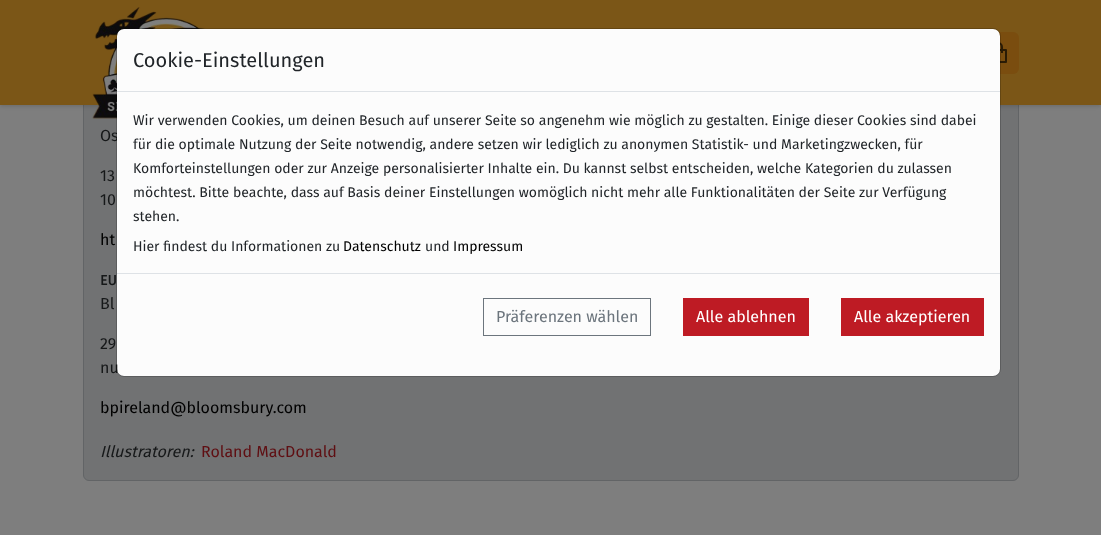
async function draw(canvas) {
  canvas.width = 1101;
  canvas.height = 535;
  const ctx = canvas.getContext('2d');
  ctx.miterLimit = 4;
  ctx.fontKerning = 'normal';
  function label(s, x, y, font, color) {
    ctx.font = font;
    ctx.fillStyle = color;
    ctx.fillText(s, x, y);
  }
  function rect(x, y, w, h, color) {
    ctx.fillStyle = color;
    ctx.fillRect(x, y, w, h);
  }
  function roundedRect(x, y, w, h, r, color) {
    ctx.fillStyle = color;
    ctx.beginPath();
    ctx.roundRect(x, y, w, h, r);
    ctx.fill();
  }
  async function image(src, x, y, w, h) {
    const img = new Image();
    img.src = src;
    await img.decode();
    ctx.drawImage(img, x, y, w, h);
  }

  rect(0, 0, 1101, 535, '#7e7e7e');
  ctx.fillStyle = '#717273';
  ctx.beginPath();
  ctx.roundRect(83.5, -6.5, 935, 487, 5.5);
  ctx.fill();
  ctx.strokeStyle = '#626466';
  ctx.stroke();
  ctx.fillStyle = '#00000029';
  ctx.filter = 'blur(2px)';
  ctx.beginPath();
  ctx.rect(0, 1, 1101, 105);
  ctx.fill();
  ctx.filter = 'none';
  rect(0, 0, 1101, 105, '#7b5617');
  await image('assets/img1.png', 92, 7, 116, 112);
  roundedRect(977, 32, 42, 42, 6, '#7a4d0f');
  await image('assets/img2.png', 1000, 42, 7, 21);
  label('Os', 100, 141, '16px Fira Sans', '#161819');
  roundedRect(117, 29, 883, 347, 7, '#fcfcfc');
  label('nu', 100, 373, '16px Fira Sans', '#161819');
  ctx.beginPath();
  ctx.roundRect(116.5, 28.5, 884, 348, 7.5);
  ctx.strokeStyle = '#0000002e';
  ctx.stroke();
  rect(117, 91, 883, 1, '#dee2e6');
  label('Cookie-Einstellungen', 133, 67, '20px Fira Sans', '#212529');
  label('Wir verwenden Cookies, um deinen Besuch auf unserer Seite so angenehm wie möglich zu gestalten. Einige dieser Cookies sind dabei', 133, 125, '14px Fira Sans', '#212529');
  label('für die optimale Nutzung der Seite notwendig, andere setzen wir lediglich zu anonymen Statistik- und Marketingzwecken, für', 133, 149, '14px Fira Sans', '#212529');
  label('Komforteinstellungen oder zur Anzeige personalisierter Inhalte ein. Du kannst selbst entscheiden, welche Kategorien du zulassen', 133, 173, '14px Fira Sans', '#212529');
  label('möchtest. Bitte beachte, dass auf Basis deiner Einstellungen womöglich nicht mehr alle Funktionalitäten der Seite zur Verfügung', 133, 197, '14px Fira Sans', '#212529');
  label('stehen.', 133, 221, '14px Fira Sans', '#212529');
  label('Hier findest du Informationen zu', 133, 251, '14px Fira Sans', '#212529');
  label('Datenschutz', 343, 251, '14px Fira Sans', '#000');
  label('und', 425, 251, '14px Fira Sans', '#212529');
  label('Impressum', 453, 251, '14px Fira Sans', '#000');
  rect(117, 273, 883, 1, '#dee2e6');
  ctx.strokeStyle = '#6c757d';
  ctx.strokeRect(483.5, 298.5, 167, 37);
  label('Präferenzen wählen', 496, 322, '16px Fira Sans', '#6c757d');
  rect(683, 298, 126, 38, '#be1b24');
  label('Alle ablehnen', 696, 322, '16px Fira Sans', '#fff');
  rect(841, 298, 143, 38, '#be1b24');
  label('Alle akzeptieren', 854, 322, '16px Fira Sans', '#fff');
  label('13', 100, 181, '16px Fira Sans', '#161819');
  label('10', 100, 205, '16px Fira Sans', '#161819');
  label('ht', 100, 245, '16px Fira Sans', '#000');
  label('EU', 100, 285, 'bold 14px Fira Sans', '#161819');
  label('Bl', 100, 309, '16px Fira Sans', '#161819');
  label('29', 100, 349, '16px Fira Sans', '#161819');
  label('bpireland@bloomsbury.com', 100, 413, '16px Fira Sans', '#000');
  label('Illustratoren:', 100, 457, 'italic 16px Fira Sans', '#161819');
  label('Roland MacDonald', 201, 457, '16px Fira Sans', '#5f0e12');
}

draw(document.querySelector('canvas'));
